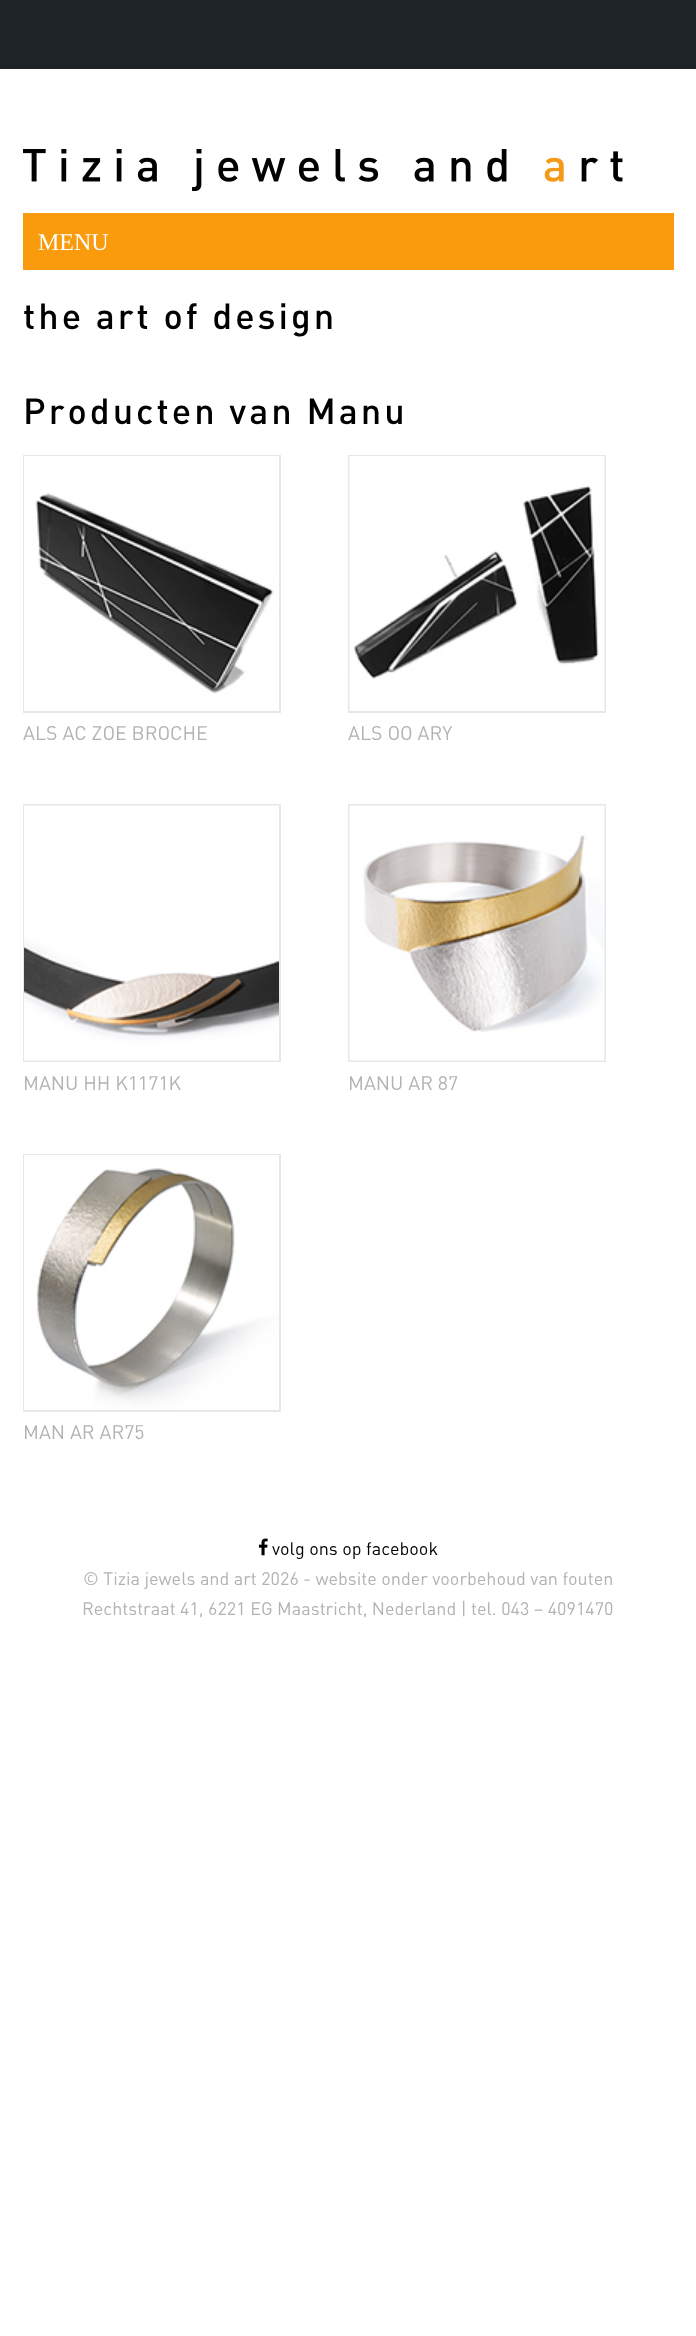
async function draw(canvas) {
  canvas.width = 696;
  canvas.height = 2336;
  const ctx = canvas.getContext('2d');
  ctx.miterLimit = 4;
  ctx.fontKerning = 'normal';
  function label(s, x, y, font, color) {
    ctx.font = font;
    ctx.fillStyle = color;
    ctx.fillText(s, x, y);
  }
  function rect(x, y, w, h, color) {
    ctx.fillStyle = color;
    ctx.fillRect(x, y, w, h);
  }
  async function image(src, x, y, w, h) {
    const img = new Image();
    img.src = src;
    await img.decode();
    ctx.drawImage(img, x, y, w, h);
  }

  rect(0, 0, 696, 2336, '#fff');
  rect(0, 0, 696, 69, '#1d2327');
  await image('assets/img1.png', 23, 149, 600, 42);
  rect(23, 213, 651, 57, '#f99b0c');
  label('MENU', 38, 250, '24px Liberation Serif', '#fff');
  ctx.letterSpacing = '3px';
  label('the art of design', 23, 329, '500 36px DIN', '#000');
  label('Producten van Manu', 23, 424, '500 36px DIN', '#000');
  ctx.strokeStyle = '#e7e7e8';
  ctx.lineWidth = 2;
  ctx.strokeRect(24, 456, 256, 256);
  await image('assets/img2.png', 24, 456, 255, 255);
  ctx.letterSpacing = '0px';
  label('ALS AC ZOE BROCHE', 23, 740, '19.5px DIN', '#b2b2b2');
  ctx.strokeRect(349, 456, 256, 256);
  await image('assets/img3.png', 349, 456, 256, 255);
  label('ALS OO ARY', 348, 740, '19.5px DIN', '#b2b2b2');
  ctx.strokeRect(24, 805, 256, 256);
  await image('assets/img4.png', 24, 805, 255, 256);
  label('MANU HH K1171K', 23, 1090, '19.5px DIN', '#b2b2b2');
  ctx.strokeRect(349, 805, 256, 256);
  await image('assets/img5.png', 349, 805, 256, 256);
  label('MANU AR 87', 348, 1090, '19.5px DIN', '#b2b2b2');
  ctx.strokeRect(24, 1155, 256, 256);
  await image('assets/img6.png', 24, 1155, 255, 255);
  label('MAN AR AR75', 23, 1439, '19.5px DIN', '#b2b2b2');
  await image('assets/img7.png', 258, 1538, 10, 18);
  label('volg ons op facebook', 272, 1555, '18px DIN', '#000');
  label('© Tizia jewels and art 2026 - website onder voorbehoud van fouten', 83, 1585, '18px DIN', '#b2b2b2');
  label('Rechtstraat 41, 6221 EG Maastricht, Nederland | tel. 043 – 4091470', 82, 1615, '18px DIN', '#b2b2b2');
}

draw(document.querySelector('canvas'));
